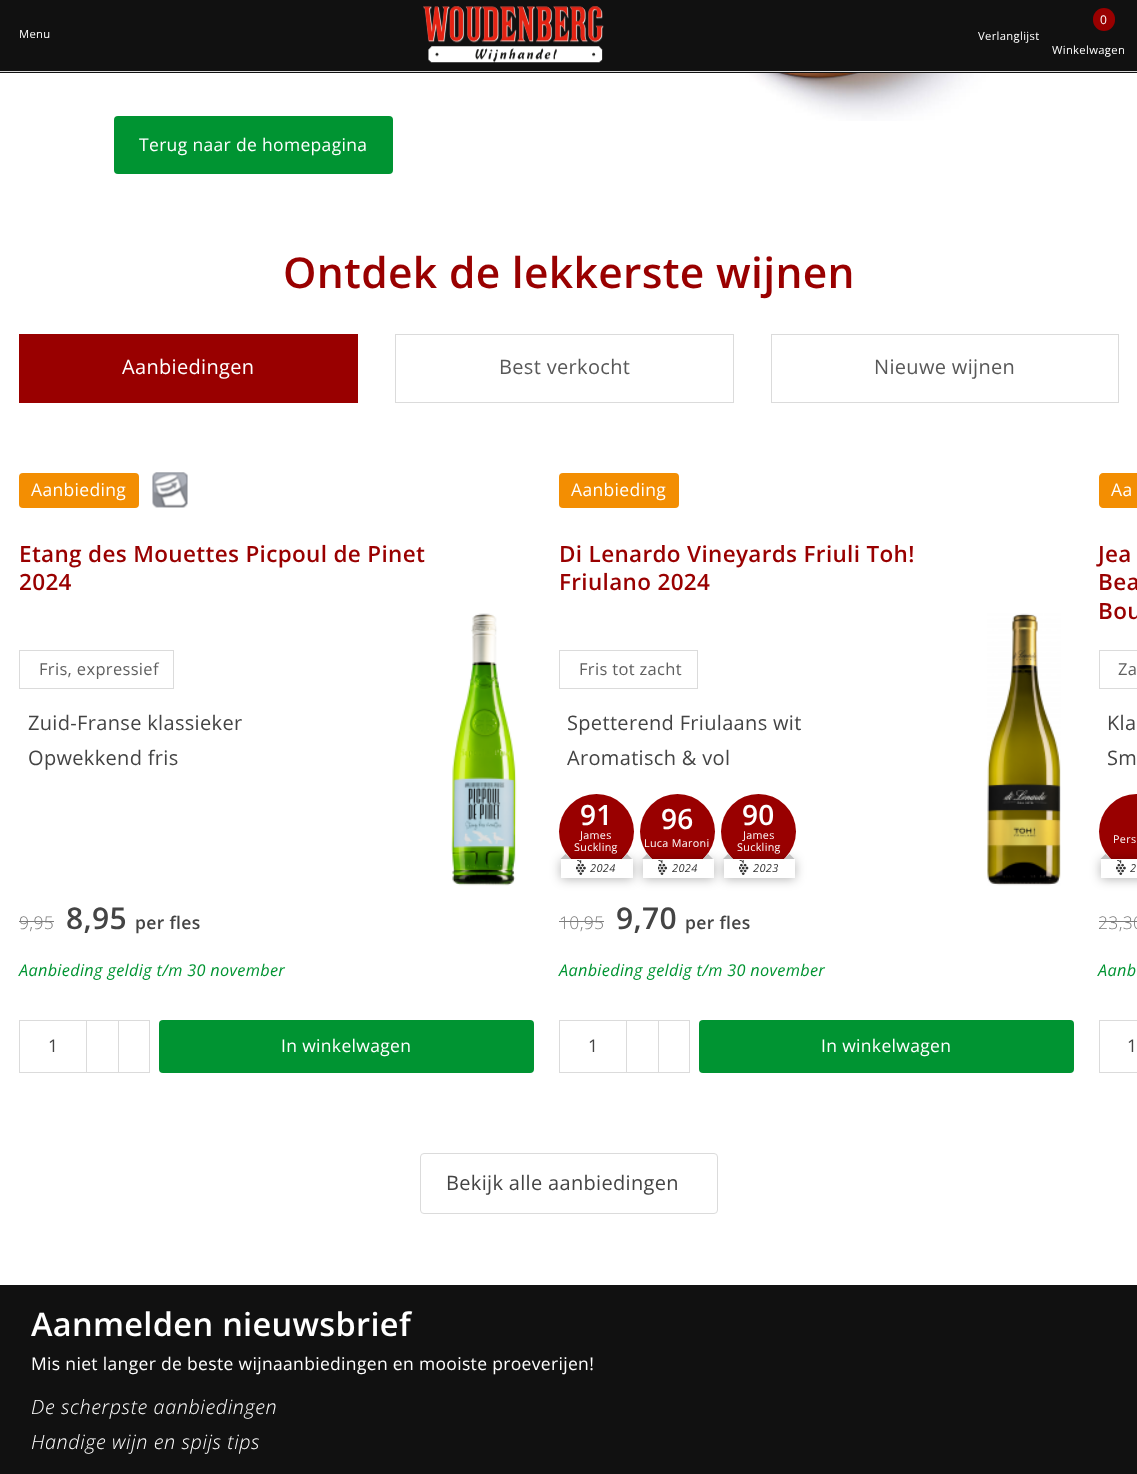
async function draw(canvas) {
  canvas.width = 1137;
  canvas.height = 1474;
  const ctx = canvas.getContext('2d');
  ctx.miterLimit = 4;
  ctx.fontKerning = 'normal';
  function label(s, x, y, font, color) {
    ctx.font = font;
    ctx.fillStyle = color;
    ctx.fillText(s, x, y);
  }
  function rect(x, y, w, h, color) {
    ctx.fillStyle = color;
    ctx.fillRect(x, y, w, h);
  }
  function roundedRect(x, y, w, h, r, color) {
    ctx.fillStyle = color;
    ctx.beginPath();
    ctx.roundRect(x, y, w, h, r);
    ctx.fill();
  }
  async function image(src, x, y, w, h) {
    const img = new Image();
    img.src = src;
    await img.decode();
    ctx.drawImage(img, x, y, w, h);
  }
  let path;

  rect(0, 0, 1137, 1474, '#fff');
  rect(0, 0, 1137, 73, '#111');
  rect(0, 71, 1137, 1, '#dbdbdb');
  ctx.letterSpacing = '0.33px';
  label('Menu', 19, 38, '11.25px Open Sans', '#fff');
  await image('assets/img1.png', 423, 6, 181, 57);
  label('Verlanglijst', 978, 40, '11.25px Open Sans', '#fff');
  roundedRect(1093, 8, 22, 23, 11, '#900');
  label('0', 1100, 24, '12px Open Sans', '#fff');
  label('Winkelwagen', 1052, 54, '11.25px Open Sans', '#fff');
  await image('assets/img2.png', 692, 73, 309, 48);
  roundedRect(114, 116, 279, 58, 4, '#009432');
  label('Terug naar de homepagina', 139, 151, '17.5px Open Sans', '#fff');
  label('Ontdek de lekkerste wijnen', 283, 288, '600 42.5px Open Sans', '#900');
  rect(19, 334, 339, 69, '#900');
  label('Aanbiedingen', 122, 374, '20px Open Sans', '#fff');
  ctx.strokeStyle = '#dbdbdb';
  ctx.strokeRect(395.5, 334.5, 338, 68);
  label('Best verkocht', 499, 374, '20px Open Sans', '#585858');
  ctx.strokeRect(771.5, 334.5, 347, 68);
  label('Nieuwe wijnen', 874, 374, '20px Open Sans', '#585858');
  roundedRect(19, 473, 120, 35, 4, '#f38e02');
  label('Aanbieding', 31, 496, '17.5px Open Sans', '#fff');
  await image('assets/img3.png', 152, 472, 36, 36);
  label('Etang des Mouettes Picpoul de Pinet', 19, 562, '600 22.5px Open Sans', '#900');
  label('2024', 19, 590, '600 22.5px Open Sans', '#900');
  ctx.strokeRect(19.5, 650.5, 154, 38);
  label('Fris, expressief', 39, 675, '16.5px Open Sans', '#5f5f5f');
  label('Zuid-Franse klassieker', 28, 730, '20px Open Sans', '#444');
  label('Opwekkend fris', 28, 765, '20px Open Sans', '#444');
  label('9,95', 19, 929, '300 17.5px Open Sans', '#7c7c7c');
  rect(19, 921, 35, 1, '#7c7c7c');
  label('8,95', 66, 929, '600 30px Open Sans', '#444');
  label('per fles', 135, 929, '600 17.5px Open Sans', '#444');
  label('Aanbieding geldig t/m 30 november', 19, 976, 'italic 16.25px Open Sans', '#009432');
  await image('assets/img4.png', 451, 613, 66, 273);
  ctx.strokeRect(19.5, 1020.5, 68, 52);
  label('1', 48, 1052, '17.5px Open Sans', '#444');
  rect(87, 1021, 1, 51, '#fff');
  ctx.strokeRect(86.5, 1020.5, 32, 52);
  ctx.strokeRect(118.5, 1020.5, 31, 52);
  roundedRect(159, 1020, 375, 53, 4, '#009432');
  label('In winkelwagen', 281, 1052, '17.5px Open Sans', '#fff');
  roundedRect(559, 473, 120, 35, 4, '#f38e02');
  label('Aanbieding', 571, 496, '17.5px Open Sans', '#fff');
  label('Di Lenardo Vineyards Friuli Toh!', 559, 562, '600 22.5px Open Sans', '#900');
  label('Friulano 2024', 559, 590, '600 22.5px Open Sans', '#900');
  ctx.strokeRect(559.5, 650.5, 138, 38);
  label('Fris tot zacht', 579, 675, '16.5px Open Sans', '#5f5f5f');
  label('Spetterend Friulaans wit', 567, 730, '20px Open Sans', '#444');
  label('Aromatisch & vol', 567, 765, '20px Open Sans', '#444');
  ctx.fillStyle = '#900';
  ctx.beginPath();
  ctx.arc(596.5, 831.5, 37.5, 0, 2 * Math.PI);
  ctx.fill();
  label('91', 580, 825, '600 28px Open Sans', '#fff');
  label('James', 580, 839, '10.75px Open Sans', '#fff');
  label('Suckling', 574, 851, '10.75px Open Sans', '#fff');
  ctx.fillStyle = '#0000004d';
  ctx.filter = 'blur(5.5px)';
  ctx.beginPath();
  ctx.rect(561, 860, 72, 19);
  ctx.fill();
  ctx.filter = 'none';
  rect(561, 859, 72, 19, '#fff');
  ctx.fillStyle = '#bfbfbf';
  path = new Path2D('M570.5 859H560.5L565.5 854Z');
  ctx.fill(path);
  path = new Path2D('M632 859H622L627 854Z');
  ctx.fill(path);
  await image('assets/img5.png', 576, 860, 10, 15);
  label('2024', 590, 872, 'italic 11px Open Sans', '#333');
  ctx.fillStyle = '#900';
  ctx.beginPath();
  ctx.arc(677.5, 831.5, 37.5, 0, 2 * Math.PI);
  ctx.fill();
  label('96', 661, 829, '600 28px Open Sans', '#fff');
  label('Luca Maroni', 644, 847, '10.75px Open Sans', '#fff');
  ctx.fillStyle = '#0000004d';
  ctx.filter = 'blur(5.5px)';
  ctx.beginPath();
  ctx.rect(643, 860, 71, 19);
  ctx.fill();
  ctx.filter = 'none';
  rect(643, 859, 71, 19, '#fff');
  ctx.fillStyle = '#bfbfbf';
  path = new Path2D('M652 859H642L647 854Z');
  ctx.fill(path);
  path = new Path2D('M713 859H703L708 854Z');
  ctx.fill(path);
  await image('assets/img6.png', 658, 860, 10, 15);
  label('2024', 672, 872, 'italic 11px Open Sans', '#333');
  ctx.fillStyle = '#900';
  ctx.beginPath();
  ctx.arc(758.5, 831.5, 37.5, 0, 2 * Math.PI);
  ctx.fill();
  label('90', 742, 825, '600 28px Open Sans', '#fff');
  label('James', 743, 839, '10.75px Open Sans', '#fff');
  label('Suckling', 737, 851, '10.75px Open Sans', '#fff');
  ctx.fillStyle = '#0000004d';
  ctx.filter = 'blur(5.5px)';
  ctx.beginPath();
  ctx.rect(724, 860, 71, 19);
  ctx.fill();
  ctx.filter = 'none';
  rect(724, 859, 71, 19, '#fff');
  ctx.fillStyle = '#bfbfbf';
  path = new Path2D('M733 859H723L728 854Z');
  ctx.fill(path);
  path = new Path2D('M794.5 859H784.5L789.5 854Z');
  ctx.fill(path);
  await image('assets/img7.png', 739, 860, 10, 15);
  label('2023', 753, 872, 'italic 11px Open Sans', '#333');
  label('10,95', 559, 929, '300 17.5px Open Sans', '#7c7c7c');
  rect(559, 921, 45, 1, '#7c7c7c');
  label('9,70', 616, 929, '600 30px Open Sans', '#444');
  label('per fles', 685, 929, '600 17.5px Open Sans', '#444');
  label('Aanbieding geldig t/m 30 november', 559, 976, 'italic 16.25px Open Sans', '#009432');
  await image('assets/img8.png', 987, 613, 74, 273);
  ctx.strokeRect(559.5, 1020.5, 68, 52);
  label('1', 588, 1052, '17.5px Open Sans', '#444');
  rect(627, 1021, 1, 51, '#fff');
  ctx.strokeRect(626.5, 1020.5, 32, 52);
  ctx.strokeRect(658.5, 1020.5, 31, 52);
  roundedRect(699, 1020, 375, 53, 4, '#009432');
  label('In winkelwagen', 821, 1052, '17.5px Open Sans', '#fff');
  ctx.fillStyle = '#f38e02';
  path = new Path2D('M1103 473H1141V508H1103C1101 508 1099 506 1099 504V477C1099 475 1101 473 1103 473Z');
  ctx.fill(path);
  label('Aa', 1111, 496, '17.5px Open Sans', '#fff');
  label('Jea', 1098, 562, '600 22.5px Open Sans', '#900');
  label('Bea', 1098, 590, '600 22.5px Open Sans', '#900');
  label('Bou', 1098, 619, '600 22.5px Open Sans', '#900');
  ctx.strokeRect(1099.5, 650.5, 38, 38);
  label('Za', 1118, 675, '16.5px Open Sans', '#5f5f5f');
  label('Kla', 1107, 730, '20px Open Sans', '#444');
  label('Sm', 1107, 765, '20px Open Sans', '#444');
  ctx.fillStyle = '#900';
  ctx.beginPath();
  ctx.arc(1136.5, 831.5, 37.5, 0, 2 * Math.PI);
  ctx.fill();
  label('Pers', 1113, 843, '10.75px Open Sans', '#fff');
  ctx.fillStyle = '#0000004d';
  ctx.filter = 'blur(5.5px)';
  ctx.beginPath();
  ctx.rect(1101, 860, 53, 19);
  ctx.fill();
  ctx.filter = 'none';
  rect(1101, 859, 36, 19, '#fff');
  ctx.fillStyle = '#bfbfbf';
  path = new Path2D('M1110.5 859H1100.5L1105.5 854Z');
  ctx.fill(path);
  await image('assets/img5.png', 1116, 860, 10, 15);
  label('2', 1130, 872, 'italic 11px Open Sans', '#333');
  label('23,30', 1098, 929, '300 17.5px Open Sans', '#7c7c7c');
  rect(1099, 921, 38, 1, '#7c7c7c');
  label('Aanb', 1098, 976, 'italic 16.25px Open Sans', '#009432');
  ctx.strokeRect(1099.5, 1020.5, 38, 52);
  label('1', 1127, 1052, '17.5px Open Sans', '#444');
  ctx.beginPath();
  ctx.roundRect(420.5, 1153.5, 297, 60, 3.5);
  ctx.stroke();
  label('Bekijk alle aanbiedingen', 446, 1190, '20px Open Sans', '#444');
  rect(0, 1285, 1137, 189, '#111');
  label('Aanmelden nieuwsbrief', 31, 1336, '600 32.5px Open Sans', '#fff');
  label('Mis niet langer de beste wijnaanbiedingen en mooiste proeverijen!', 31, 1370, '17.5px Open Sans', '#fff');
  ctx.letterSpacing = '0.6px';
  label('De scherpste aanbiedingen', 31, 1414, 'italic 300 19.75px Open Sans', '#fff');
  label('Handige wijn en spijs tips', 31, 1449, 'italic 300 19.75px Open Sans', '#fff');
}

draw(document.querySelector('canvas'));
